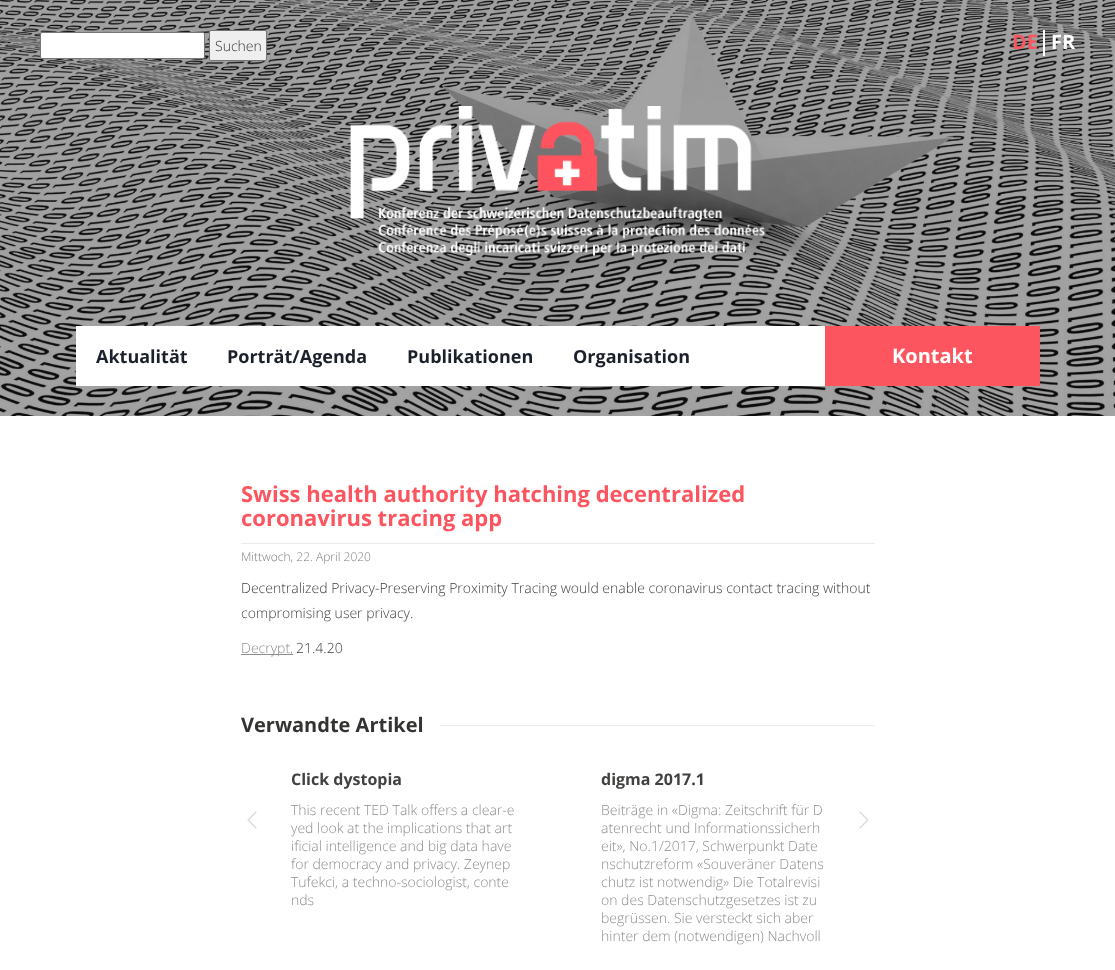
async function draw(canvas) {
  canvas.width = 1115;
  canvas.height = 970;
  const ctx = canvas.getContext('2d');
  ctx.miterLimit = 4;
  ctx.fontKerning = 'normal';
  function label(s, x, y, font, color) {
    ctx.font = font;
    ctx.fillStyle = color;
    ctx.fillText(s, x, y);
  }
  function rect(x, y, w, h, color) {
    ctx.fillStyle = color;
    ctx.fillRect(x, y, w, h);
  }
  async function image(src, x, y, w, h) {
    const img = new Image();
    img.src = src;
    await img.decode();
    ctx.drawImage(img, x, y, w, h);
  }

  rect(0, 0, 1115, 970, '#fff');
  await image('assets/img1.png', 0, 0, 1115, 416);
  ctx.beginPath();
  ctx.roundRect(40.5, 32.5, 164, 26, 1.5);
  ctx.fill();
  ctx.strokeStyle = '#767676';
  ctx.stroke();
  ctx.fillStyle = '#efefef';
  ctx.beginPath();
  ctx.roundRect(209.5, 30.5, 57, 30, 1.5);
  ctx.fill();
  ctx.stroke();
  label('Suchen', 215, 51, '300 14px Open Sans', '#333331');
  rect(1043, 30, 2, 26, '#fff');
  label('DE', 1012, 49, 'bold 20px Open Sans', '#fc555f');
  label('FR', 1051, 49, 'bold 20px Open Sans', '#fff');
  await image('assets/img2.png', 350, 106, 416, 150);
  rect(76, 326, 749, 60, '#fff');
  label('Aktualität', 96, 363, 'bold 18px Open Sans', '#1b202b');
  label('Porträt/Agenda', 227, 363, 'bold 18px Open Sans', '#1b202b');
  label('Publikationen', 407, 363, 'bold 18px Open Sans', '#1b202b');
  label('Organisation', 573, 363, 'bold 18px Open Sans', '#1b202b');
  rect(825, 326, 215, 60, '#fc555f');
  label('Kontakt', 892, 363, 'bold 20px Open Sans', '#fff');
  rect(241, 543, 634, 1, '#ebebeb');
  label('Swiss health authority hatching decentralized', 241, 502, 'bold 22px Open Sans', '#fc555f');
  label('coronavirus tracing app', 241, 526, 'bold 22px Open Sans', '#fc555f');
  label('Mittwoch, 22. April 2020', 241, 561, '300 12px Open Sans', '#808080');
  label('Decentralized Privacy-Preserving Proximity Tracing would enable coronavirus contact tracing without', 241, 593, '300 14px Open Sans', '#414140');
  label('compromising user privacy.', 241, 618, '300 14px Open Sans', '#414140');
  rect(241, 654, 52, 1, '#8e8e8e');
  label('Decrypt,', 241, 653, '300 14px Open Sans', '#8e8e8e');
  label('21.4.20', 296, 653, '300 14px Open Sans', '#414140');
  rect(440, 725, 435, 1, '#ebebeb');
  label('Verwandte Artikel', 241, 732, 'bold 20px Open Sans', '#333331');
  await image('assets/img3.png', 247, 811, 10, 18);
  label('Click dystopia', 291, 785, 'bold 16px Open Sans', '#414140');
  label('This recent TED Talk offers a clear-e', 291, 815, '300 14px Open Sans', '#8e8e8e');
  label('yed look at the implications that art', 291, 833, '300 14px Open Sans', '#8e8e8e');
  label('ificial intelligence and big data have', 291, 851, '300 14px Open Sans', '#8e8e8e');
  label('for democracy and privacy. Zeynep', 291, 869, '300 14px Open Sans', '#8e8e8e');
  label('Tufekci, a techno-sociologist, conte', 291, 887, '300 14px Open Sans', '#8e8e8e');
  label('nds', 291, 905, '300 14px Open Sans', '#8e8e8e');
  label('digma 2017.1', 601, 785, 'bold 16px Open Sans', '#414140');
  label('Beiträge in «Digma: Zeitschrift für D', 601, 815, '300 14px Open Sans', '#8e8e8e');
  label('atenrecht und Informationssicherh', 601, 833, '300 14px Open Sans', '#8e8e8e');
  label('eit», No.1/2017, Schwerpunkt Date', 601, 851, '300 14px Open Sans', '#8e8e8e');
  label('nschutzreform «Souveräner Datens', 601, 869, '300 14px Open Sans', '#8e8e8e');
  label('chutz ist notwendig» Die Totalrevisi', 601, 887, '300 14px Open Sans', '#8e8e8e');
  label('on des Datenschutzgesetzes ist zu', 601, 905, '300 14px Open Sans', '#8e8e8e');
  label('begrüssen. Sie versteckt sich aber', 601, 923, '300 14px Open Sans', '#8e8e8e');
  label('hinter dem (notwendigen) Nachvoll', 601, 941, '300 14px Open Sans', '#8e8e8e');
  await image('assets/img4.png', 859, 811, 10, 18);
}

draw(document.querySelector('canvas'));
